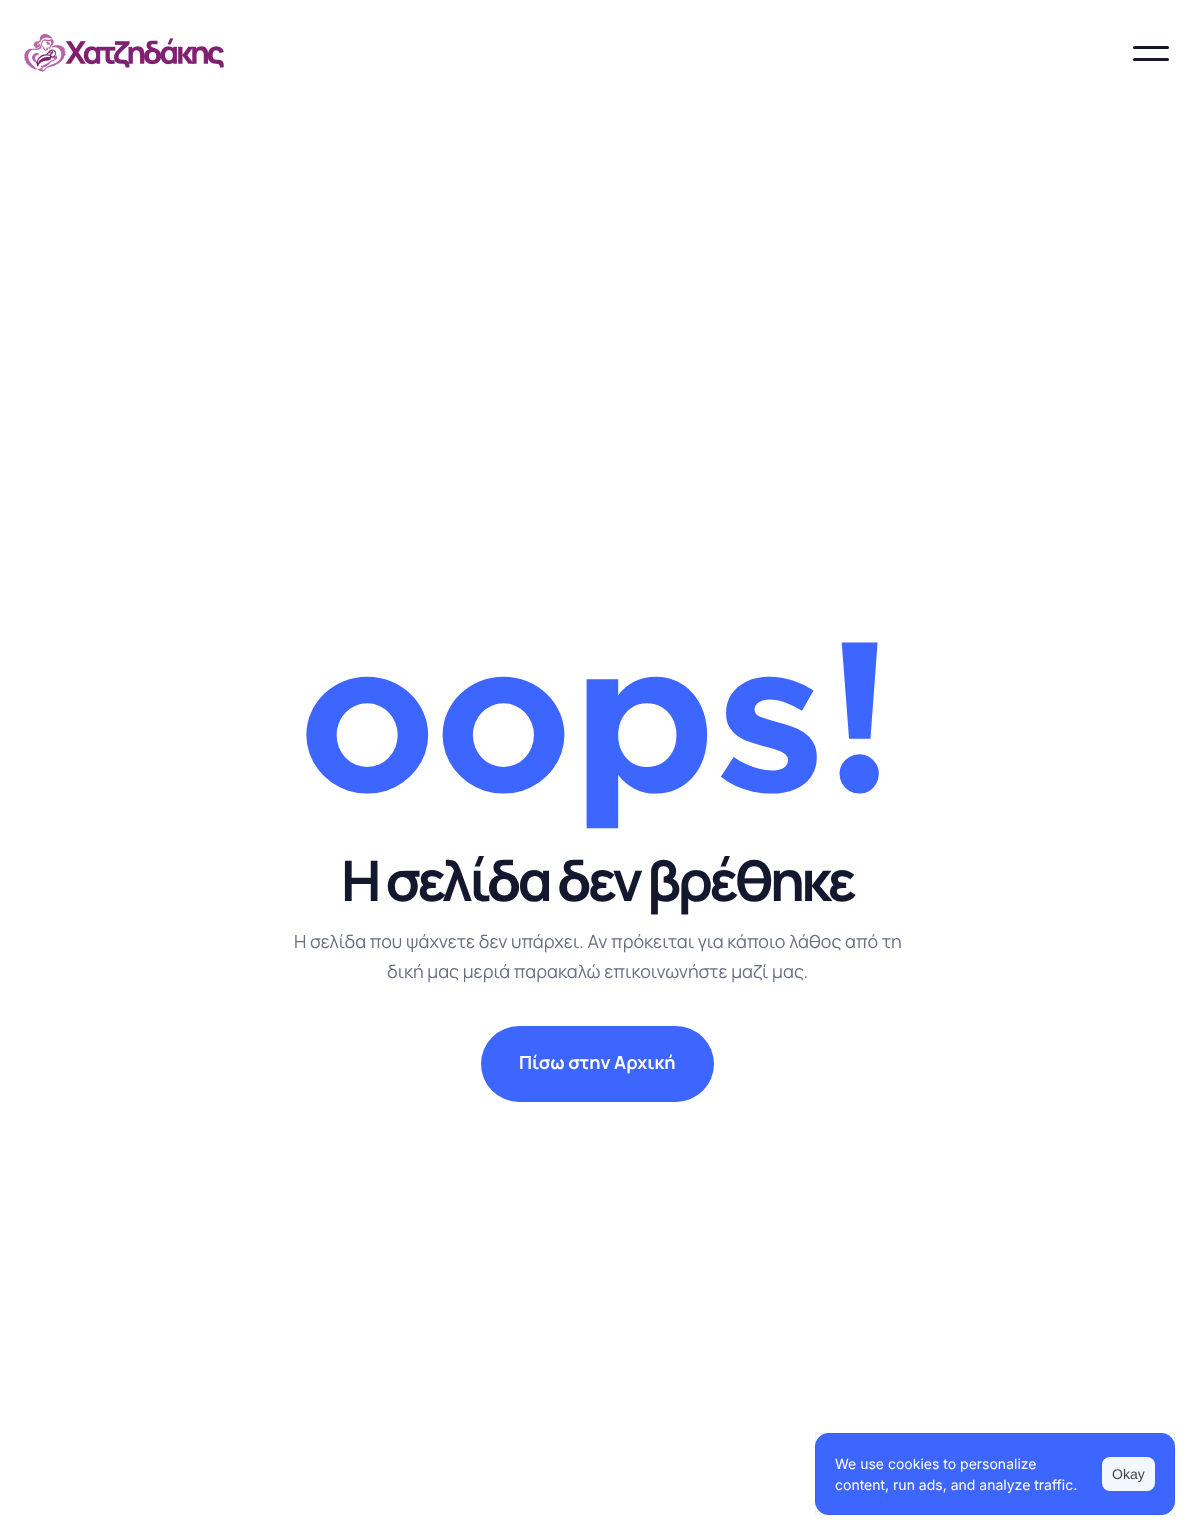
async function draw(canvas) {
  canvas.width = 1195;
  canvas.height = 1535;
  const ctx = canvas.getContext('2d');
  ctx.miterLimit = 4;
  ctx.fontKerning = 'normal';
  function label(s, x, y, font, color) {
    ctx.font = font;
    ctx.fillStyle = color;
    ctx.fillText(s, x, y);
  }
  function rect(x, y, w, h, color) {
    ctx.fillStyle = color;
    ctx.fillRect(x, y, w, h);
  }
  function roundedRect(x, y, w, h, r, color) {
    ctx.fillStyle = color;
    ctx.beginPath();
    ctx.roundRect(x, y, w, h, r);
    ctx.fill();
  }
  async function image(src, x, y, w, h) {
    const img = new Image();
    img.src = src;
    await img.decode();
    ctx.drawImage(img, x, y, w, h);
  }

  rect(0, 0, 1195, 1535, '#fff');
  await image('assets/img1.png', 24, 34, 200, 38);
  roundedRect(1133, 46, 36, 3, 1.5, '#13182f');
  roundedRect(1133, 58, 36, 3, 1.5, '#13182f');
  label('oops!', 299, 791, 'bold 216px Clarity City', '#3d65ff');
  ctx.letterSpacing = '-3.6px';
  label('Η σελίδα δεν βρέθηκε', 341, 901, 'bold 56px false', '#13182f');
  ctx.letterSpacing = '0px';
  label('Η σελίδα που ψάχνετε δεν υπάρχει. Αν πρόκειται για κάποιο λάθος από τη', 294, 948, '18px false', '#666e82');
  label('δική μας μεριά παρακαλώ επικοινωνήστε μαζί μας.', 387, 978, '18px false', '#666e82');
  roundedRect(481, 1026, 233, 76, 38, '#3d65ff');
  label('Πίσω στην Αρχική', 519, 1069, 'bold 18px false', '#fff');
  roundedRect(815, 1433, 360, 82, 14, '#3d65ff');
  ctx.strokeStyle = '#0000000d';
  ctx.strokeRect(815.5, 1433.5, 359, 81);
  label('We use cookies to personalize', 835, 1469, '14px Inter', '#fff');
  label('content, run ads, and analyze traffic.', 835, 1490, '14px Inter', '#fff');
  roundedRect(1102, 1457, 53, 34, 8, '#f3f8ff');
  label('Okay', 1112, 1479, '14px Liberation Sans', '#444');
}

draw(document.querySelector('canvas'));
